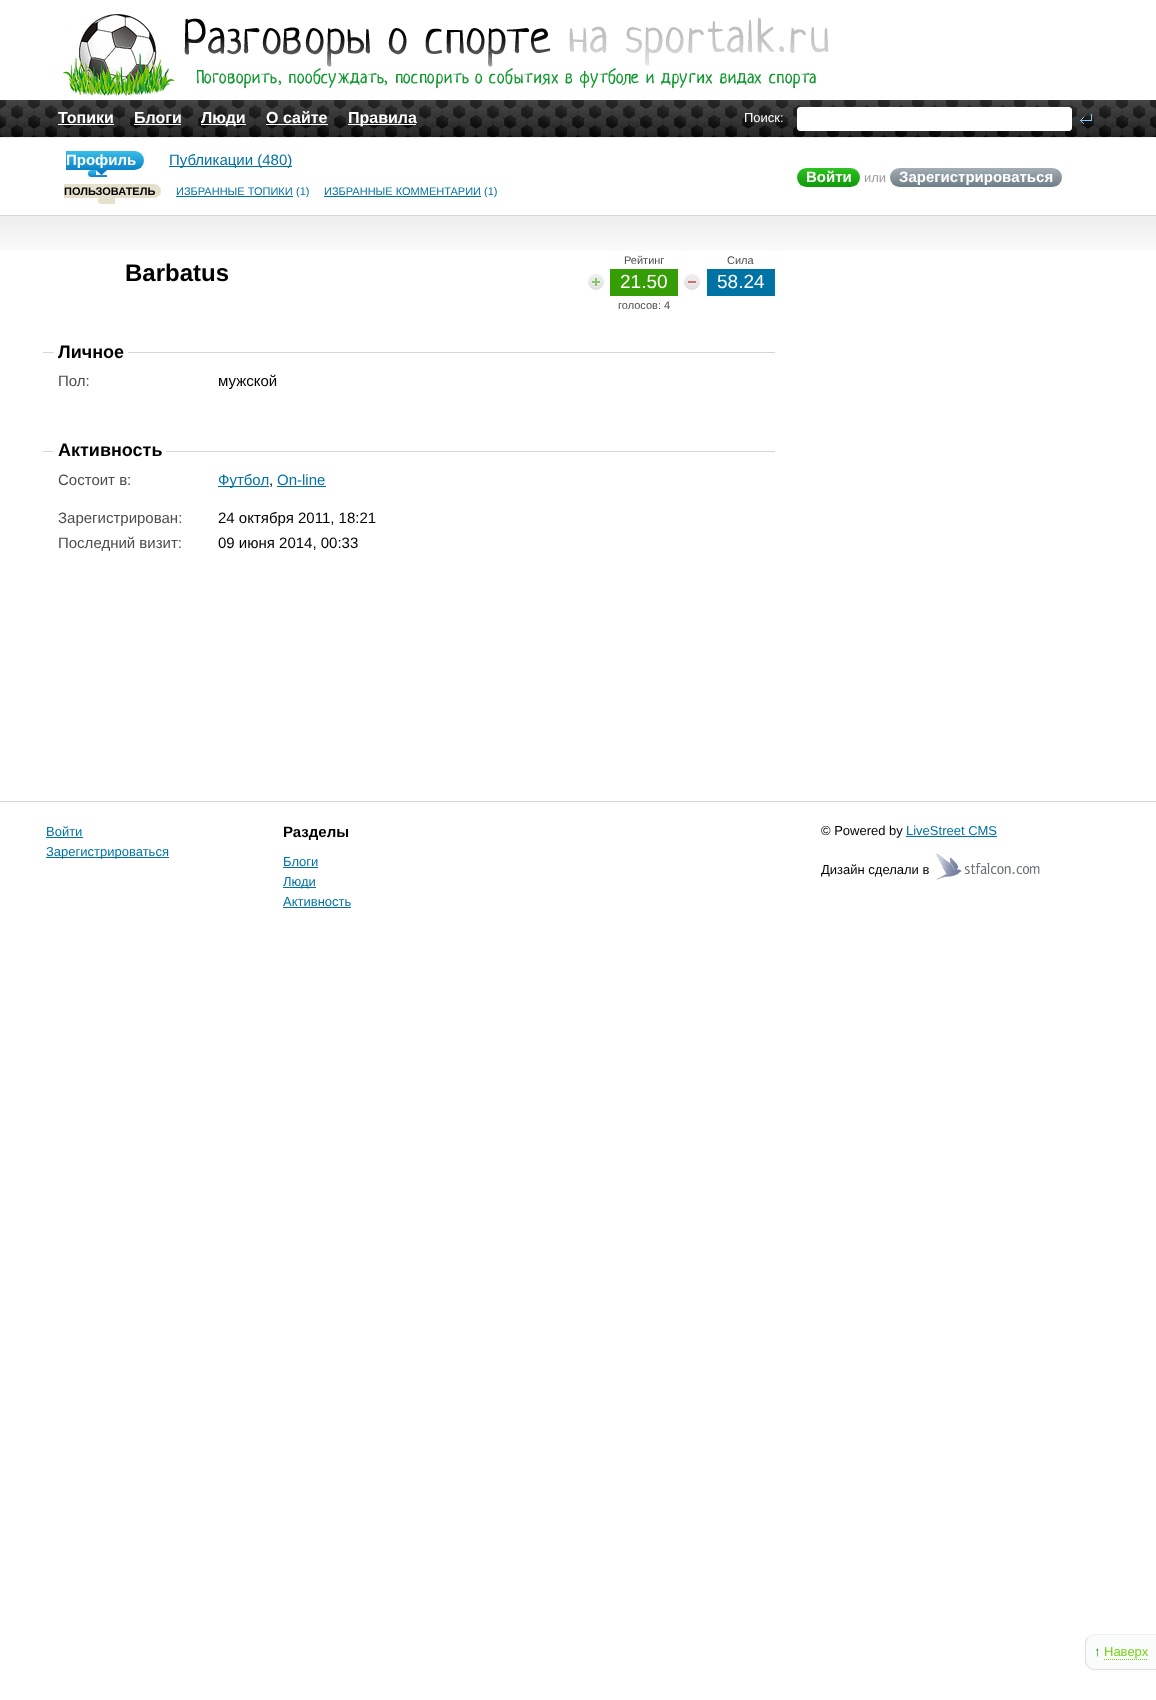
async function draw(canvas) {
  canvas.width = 1156;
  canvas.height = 1700;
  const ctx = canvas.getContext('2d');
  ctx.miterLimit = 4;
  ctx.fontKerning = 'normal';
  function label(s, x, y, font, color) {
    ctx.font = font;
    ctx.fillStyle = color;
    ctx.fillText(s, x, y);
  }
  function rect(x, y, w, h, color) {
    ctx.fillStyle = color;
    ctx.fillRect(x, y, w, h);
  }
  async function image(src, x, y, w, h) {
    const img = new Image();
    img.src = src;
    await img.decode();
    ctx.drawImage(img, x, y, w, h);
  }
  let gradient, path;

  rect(0, 0, 1156, 1700, '#fff');
  await image('assets/img1.png', 61, 14, 768, 83);
  await image('assets/img2.png', 0, 100, 1156, 38);
  label('Топики', 58, 123, 'bold 16px Liberation Sans', '#fff');
  rect(58, 124, 56, 1, '#fff');
  label('Блоги', 134, 123, 'bold 16px Liberation Sans', '#fff');
  rect(134, 124, 47, 1, '#fff');
  rect(201, 124, 45, 1, '#fff');
  label('Люди', 201, 123, 'bold 16px Liberation Sans', '#fff');
  label('О сайте', 266, 123, 'bold 16px Liberation Sans', '#fff');
  rect(266, 124, 62, 1, '#fff');
  rect(348, 124, 68, 1, '#fff');
  label('Правила', 348, 123, 'bold 16px Liberation Sans', '#fff');
  label('Поиск:', 744, 122, '13px Liberation Sans', '#fff');
  ctx.beginPath();
  ctx.roundRect(797.5, 107.5, 274, 23, 2.5);
  ctx.fill();
  ctx.strokeStyle = '#fff';
  ctx.stroke();
  await image('assets/img3.png', 1080, 114, 12, 10);
  rect(0, 215, 1156, 1, '#d6d6d6');
  gradient = ctx.createLinearGradient(88, 170, 88, 177);
  gradient.addColorStop(0, '#38bee7');
  gradient.addColorStop(1, '#0c82c9');
  ctx.fillStyle = gradient;
  ctx.beginPath();
  ctx.roundRect(88, 170, 19, 7, [3.5, 0, 0, 3.5]);
  ctx.fill();
  gradient = ctx.createLinearGradient(66, 151, 66, 170);
  gradient.addColorStop(0, '#38bee7');
  gradient.addColorStop(1, '#0c82c9');
  ctx.fillStyle = gradient;
  ctx.beginPath();
  ctx.roundRect(66, 151, 78, 19, [0, 9.5, 9.5, 0]);
  ctx.fill();
  label('Профиль', 66, 165, 'bold 15px Liberation Sans', '#fff');
  await image('assets/img4.png', 96, 170, 11, 5);
  ctx.fillStyle = '#e6e1cc';
  ctx.beginPath();
  ctx.roundRect(98, 197, 17, 7, [3.5, 0, 0, 3.5]);
  ctx.fill();
  ctx.beginPath();
  ctx.roundRect(64, 184, 97, 14, [0, 7, 7, 0]);
  ctx.fill();
  label('ПОЛЬЗОВАТЕЛЬ', 64, 195, 'bold 11px Liberation Sans', '#000');
  label('ИЗБРАННЫЕ ТОПИКИ', 176, 195, '11px Liberation Sans', '#0073a5');
  rect(176, 196, 117, 1, '#0073a5');
  label('(1)', 296, 195, '11px Liberation Sans', '#0073a5');
  label('ИЗБРАННЫЕ КОММЕНТАРИИ', 324, 195, '11px Liberation Sans', '#0073a5');
  rect(324, 196, 157, 1, '#0073a5');
  label('(1)', 484, 195, '11px Liberation Sans', '#0073a5');
  rect(169, 166, 123, 1, '#0073a5');
  label('Публикации (480)', 169, 165, '15px Liberation Sans', '#0073a5');
  gradient = ctx.createLinearGradient(797, 168, 797, 187);
  gradient.addColorStop(0, '#2ec221');
  gradient.addColorStop(1, '#0e9909');
  ctx.fillStyle = gradient;
  ctx.beginPath();
  ctx.roundRect(797, 168, 63, 19, 9.5);
  ctx.fill();
  label('Войти', 806, 182, 'bold 15px Liberation Sans', '#fff');
  label('или', 864, 182, '13px Liberation Sans', '#9c9c9c');
  gradient = ctx.createLinearGradient(890, 168, 890, 187);
  gradient.addColorStop(0, '#a3aeb5');
  gradient.addColorStop(1, '#6e7d86');
  ctx.fillStyle = gradient;
  ctx.beginPath();
  ctx.roundRect(890, 168, 172, 19, 9.5);
  ctx.fill();
  label('Зарегистрироваться', 899, 182, 'bold 15px Liberation Sans', '#fff');
  await image('assets/img5.png', 0, 216, 1156, 35);
  label('Barbatus', 125, 281, 'bold 24px Liberation Sans', '#000');
  label('Рейтинг', 624, 264, '11px Liberation Sans', '#4d4d4d');
  await image('assets/img6.png', 588, 274, 16, 16);
  rect(610, 269, 68, 27, '#359e07');
  label('21.50', 620, 288, '19px Liberation Sans', '#fff');
  await image('assets/img7.png', 684, 274, 16, 16);
  label('голосов: 4', 618, 309, '11px Liberation Sans', '#4d4d4d');
  label('Сила', 727, 264, '11px Liberation Sans', '#4d4d4d');
  rect(707, 269, 68, 27, '#0073a5');
  label('58.24', 717, 288, '19px Liberation Sans', '#fff');
  rect(43, 352, 732, 1, '#d6d6d6');
  rect(54, 352, 74, 1, '#fff');
  label('Личное', 58, 358, 'bold 18px Liberation Sans', '#000');
  label('Пол:', 58, 386, '15px Liberation Sans', '#4d4d4d');
  label('мужской', 218, 386, '15px Liberation Sans', '#000');
  rect(43, 451, 732, 1, '#d6d6d6');
  rect(54, 451, 112, 1, '#fff');
  label('Активность', 58, 456, 'bold 18px Liberation Sans', '#000');
  label('Состоит в:', 58, 485, '15px Liberation Sans', '#4d4d4d');
  rect(218, 486, 51, 1, '#0073a5');
  label('Футбол', 218, 485, '15px Liberation Sans', '#0073a5');
  label(',', 269, 485, '15px Liberation Sans', '#000');
  label('On-line', 277, 485, '15px Liberation Sans', '#0073a5');
  rect(277, 486, 49, 1, '#0073a5');
  label('Зарегистрирован:', 58, 523, '15px Liberation Sans', '#4d4d4d');
  label('24 октября 2011, 18:21', 218, 523, '15px Liberation Sans', '#000');
  label('Последний визит:', 58, 548, '15px Liberation Sans', '#4d4d4d');
  label('09 июня 2014, 00:33', 218, 548, '15px Liberation Sans', '#000');
  rect(0, 801, 1156, 1, '#d6d6d6');
  label('Войти', 46, 836, '13px Liberation Sans', '#0073a5');
  rect(46, 837, 37, 1, '#0073a5');
  rect(46, 857, 123, 1, '#0073a5');
  label('Зарегистрироваться', 46, 856, '13px Liberation Sans', '#0073a5');
  label('Разделы', 283, 837, 'bold 15px Liberation Sans', '#000');
  label('Блоги', 283, 866, '13px Liberation Sans', '#0073a5');
  rect(283, 867, 35, 1, '#0073a5');
  rect(283, 887, 33, 1, '#0073a5');
  label('Люди', 283, 886, '13px Liberation Sans', '#0073a5');
  label('Активность', 283, 906, '13px Liberation Sans', '#0073a5');
  rect(283, 907, 68, 1, '#0073a5');
  label('© Powered by', 821, 835, '13px Liberation Sans', '#000');
  label('LiveStreet CMS', 906, 835, '13px Liberation Sans', '#0073a5');
  rect(906, 836, 91, 1, '#0073a5');
  label('Дизайн сделали в', 821, 874, '13px Liberation Sans', '#000');
  await image('assets/img8.png', 936, 853, 104, 27);
  ctx.fillStyle = '#fafbfb';
  ctx.beginPath();
  ctx.roundRect(1085, 1634, 71, 36, [10, 0, 0, 10]);
  ctx.fill();
  ctx.fillStyle = '#eee';
  path = new Path2D('M1095 1634C1092 1634 1090 1635 1088 1637L1089 1638C1090 1636 1092 1635 1095 1635H1156V1634Z');
  ctx.fill(path);
  ctx.fillStyle = '#ddd';
  path = new Path2D('M1156 1670V1669H1095C1092 1669 1090 1668 1089 1666L1088 1667C1090 1669 1092 1670 1095 1670Z');
  ctx.fill(path);
  path = new Path2D('M1085 1644V1660C1085 1663 1086 1665.5 1088 1667L1088.5 1666.5C1085 1662.5 1086 1657 1086 1652C1086 1647 1085 1641.5 1088.5 1637.5L1088 1637C1086 1638.5 1085 1641 1085 1644Z');
  ctx.fill(path);
  label('↑', 1094, 1656, '13px Liberation Sans', '#008000');
  label('Наверх', 1104, 1656, '13px Liberation Sans', '#77d115');
  path = new Path2D('M1104 1659.5H1148');
  ctx.strokeStyle = '#77d115';
  ctx.setLineDash([1, 1]);
  ctx.stroke(path);
}

draw(document.querySelector('canvas'));
